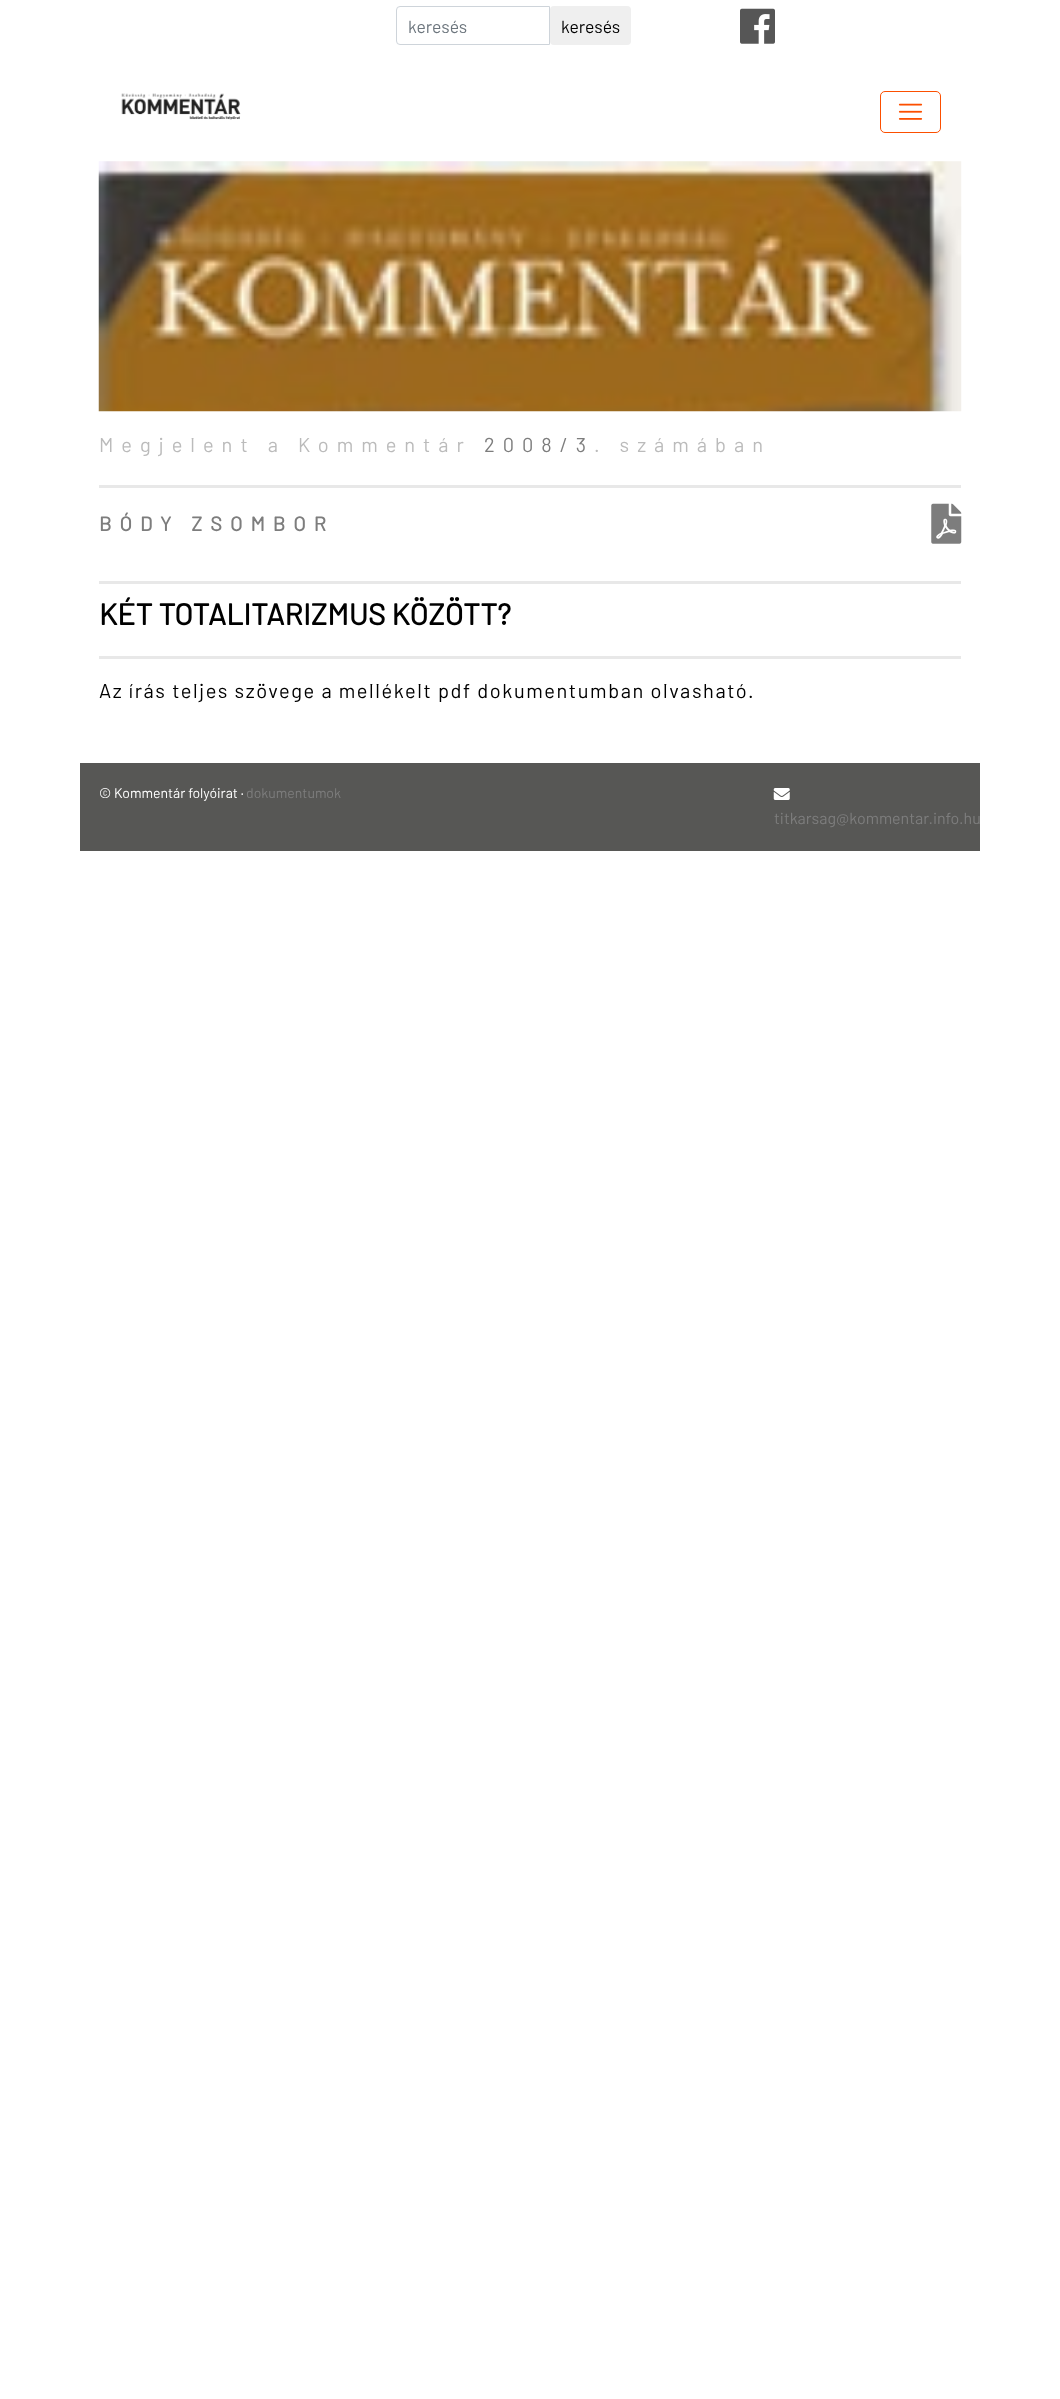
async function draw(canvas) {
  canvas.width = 1060;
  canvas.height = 2399;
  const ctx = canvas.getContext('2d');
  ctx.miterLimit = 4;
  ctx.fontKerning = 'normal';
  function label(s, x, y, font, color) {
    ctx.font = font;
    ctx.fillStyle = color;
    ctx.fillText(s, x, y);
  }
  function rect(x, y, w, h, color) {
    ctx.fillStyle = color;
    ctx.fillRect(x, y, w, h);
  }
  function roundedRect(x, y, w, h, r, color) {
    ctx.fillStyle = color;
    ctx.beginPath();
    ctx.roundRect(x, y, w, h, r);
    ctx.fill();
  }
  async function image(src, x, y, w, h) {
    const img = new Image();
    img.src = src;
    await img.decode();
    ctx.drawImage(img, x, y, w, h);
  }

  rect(0, 0, 1060, 2399, '#fff');
  ctx.beginPath();
  ctx.roundRect(396.5, 6.5, 153, 38, [3.5, 0, 0, 3.5]);
  ctx.strokeStyle = '#ced4da';
  ctx.stroke();
  label('keresés', 408, 33, '17.5px Barlow', '#6c757d');
  roundedRect(550, 6, 81, 39, 4, '#efefef');
  label('keresés', 561, 33, '17.5px Barlow', '#000');
  await image('assets/img1.png', 740, 8, 35, 36);
  await image('assets/img2.png', 121, 93, 120, 27);
  ctx.beginPath();
  ctx.roundRect(880.5, 91.5, 60, 41, 4.5);
  ctx.strokeStyle = '#fc4f00';
  ctx.stroke();
  await image('assets/img3.png', 898, 103, 25, 17);
  await image('assets/img4.png', 98, 161, 864, 251);
  ctx.letterSpacing = '8px';
  label('Megjelent a Kommentár', 99, 452, '20px Barlow', '#bbb');
  label('2008/3', 484, 452, '20px Barlow', '#7d7d7d');
  label('. számában', 594, 452, '20px Barlow', '#bbb');
  rect(99, 485, 862, 3, '#e8e8e8');
  label('BÓDY ZSOMBOR', 99, 531, 'bold 20px Barlow', '#7d7d7d');
  await image('assets/img5.png', 931, 503, 31, 41);
  rect(99, 581, 862, 3, '#e8e8e8');
  ctx.letterSpacing = '0px';
  label('KÉT TOTALITARIZMUS KÖZÖTT?', 99, 625, 'bold 30px Barlow', '#000');
  rect(99, 656, 862, 3, '#e8e8e8');
  ctx.letterSpacing = '1.6px';
  label('Az írás teljes szövege a mellékelt pdf dokumentumban olvasható.', 99, 698, '20px Barlow', '#000');
  rect(80, 763, 900, 88, '#575755');
  ctx.letterSpacing = '0px';
  label('© Kommentár folyóirat ·', 99, 798, '14px Barlow', '#fff');
  label('dokumentumok', 246, 798, '14px Barlow', '#7d7d7d');
  await image('assets/img6.png', 773, 788, 17, 12);
  label('titkarsag@kommentar.info.hu', 774, 824, '16px Barlow', '#7d7d7d');
}

draw(document.querySelector('canvas'));
